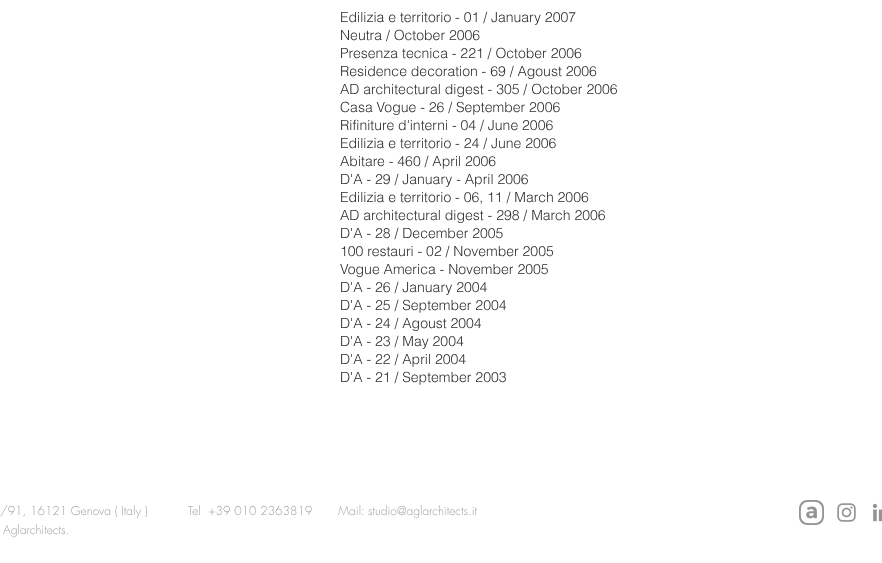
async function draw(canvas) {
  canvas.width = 882;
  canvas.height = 563;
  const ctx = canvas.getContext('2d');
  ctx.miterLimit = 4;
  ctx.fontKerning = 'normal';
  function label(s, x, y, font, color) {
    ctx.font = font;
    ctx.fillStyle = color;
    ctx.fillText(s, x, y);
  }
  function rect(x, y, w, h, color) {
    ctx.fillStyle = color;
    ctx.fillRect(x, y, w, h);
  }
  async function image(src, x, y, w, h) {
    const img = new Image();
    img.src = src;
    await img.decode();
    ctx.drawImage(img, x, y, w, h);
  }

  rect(0, 0, 882, 563, '#fff');
  label('Edilizia e territorio - 01 / January 2007', 340, 22, '300 14px helvetica', '#2f2e2e');
  label('Neutra / October 2006', 340, 40, '300 14px helvetica', '#2f2e2e');
  label('Presenza tecnica - 221 / October 2006', 340, 58, '300 14px helvetica', '#2f2e2e');
  label('Residence decoration - 69 / Agoust 2006', 340, 76, '300 14px helvetica', '#2f2e2e');
  label('AD architectural digest - 305 / October 2006', 340, 94, '300 14px helvetica', '#2f2e2e');
  label('Casa Vogue - 26 / September 2006', 340, 112, '300 14px helvetica', '#2f2e2e');
  label('Rifiniture d\'interni - 04 / June 2006', 340, 130, '300 14px helvetica', '#2f2e2e');
  label('Edilizia e territorio - 24 / June 2006', 340, 148, '300 14px helvetica', '#2f2e2e');
  label('Abitare - 460 / April 2006', 340, 166, '300 14px helvetica', '#2f2e2e');
  label('D\'A - 29 / January - April 2006', 340, 184, '300 14px helvetica', '#2f2e2e');
  label('Edilizia e territorio - 06, 11 / March 2006', 340, 202, '300 14px helvetica', '#2f2e2e');
  label('AD architectural digest - 298 / March 2006', 340, 220, '300 14px helvetica', '#2f2e2e');
  label('D\'A - 28 / December 2005', 340, 238, '300 14px helvetica', '#2f2e2e');
  label('100 restauri - 02 / November 2005', 340, 256, '300 14px helvetica', '#2f2e2e');
  label('Vogue America - November 2005', 340, 274, '300 14px helvetica', '#2f2e2e');
  label('D\'A - 26 / January 2004', 340, 292, '300 14px helvetica', '#2f2e2e');
  label('D\'A - 25 / September 2004', 340, 310, '300 14px helvetica', '#2f2e2e');
  label('D\'A - 24 / Agoust 2004', 340, 328, '300 14px helvetica', '#2f2e2e');
  label('D\'A - 23 / May 2004', 340, 346, '300 14px helvetica', '#2f2e2e');
  label('D\'A - 22 / April 2004', 340, 364, '300 14px helvetica', '#2f2e2e');
  label('D\'A - 21 / September 2003', 340, 382, '300 14px helvetica', '#2f2e2e');
  label('/91, 16121 Genova ( Italy )', 0, 515, '300 12px futura', '#a0a09f');
  label('Tel  +39 010 2363819       Mail: studio@aglarchitects.it', 188, 515, '300 12px futura', '#a0a09f');
  await image('assets/img1.png', 799, 500, 25, 25);
  await image('assets/img2.png', 837, 503, 19, 19);
  await image('assets/img3.png', 872, 503, 10, 19);
  label('Aglarchitects.', 3, 534, '300 12px futura', '#a0a09f');
}

draw(document.querySelector('canvas'));
